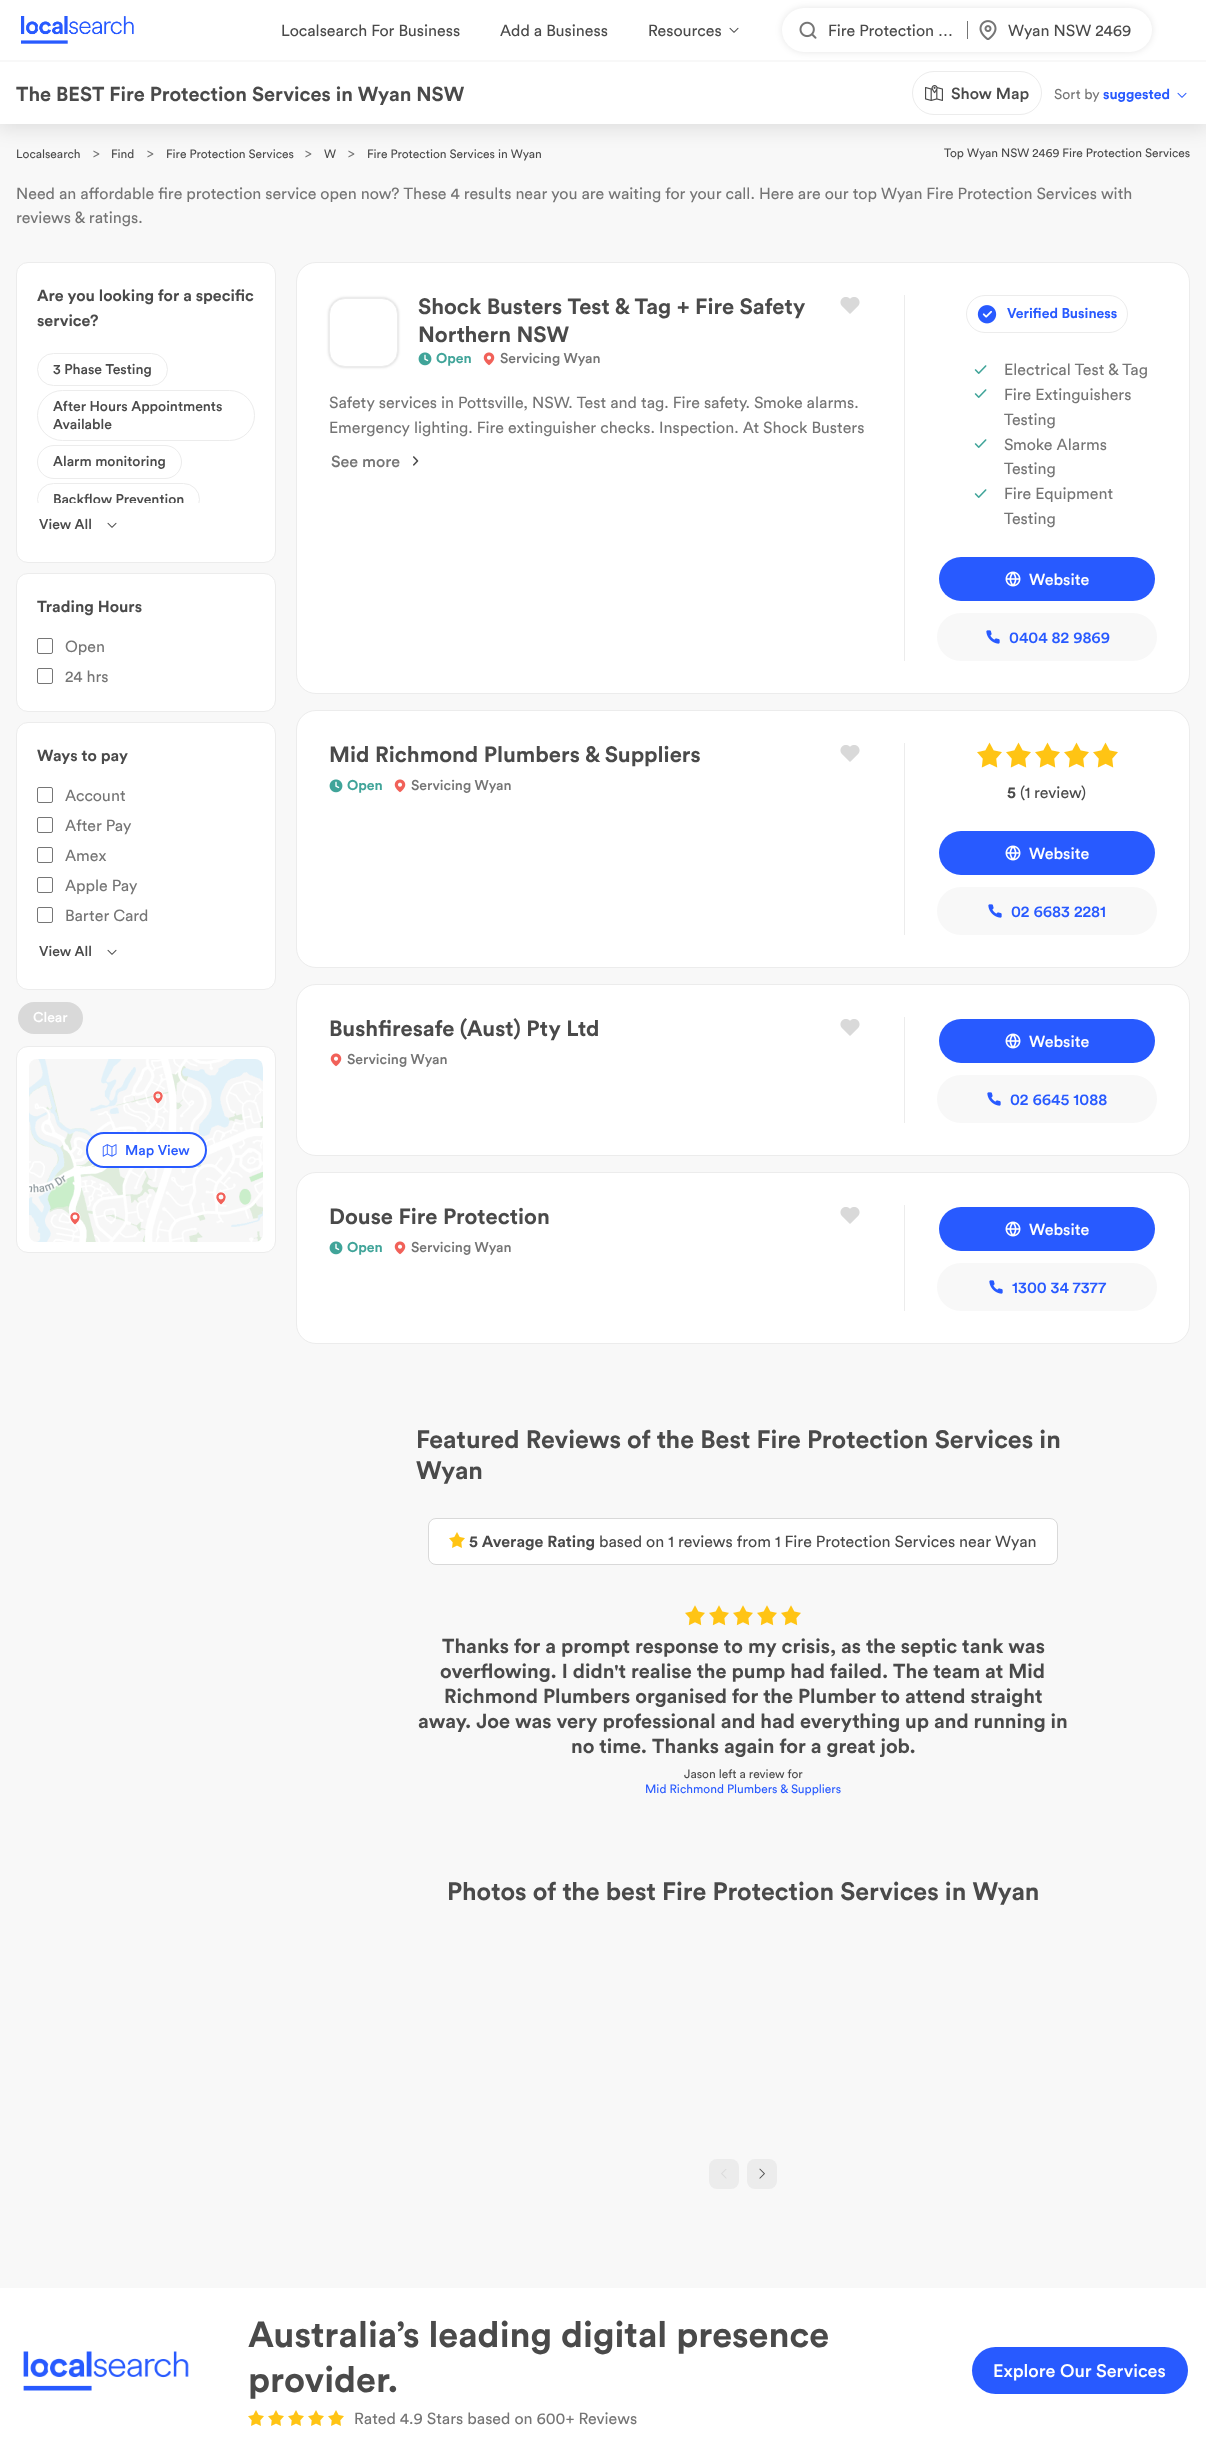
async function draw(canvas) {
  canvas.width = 1206;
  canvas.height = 2447;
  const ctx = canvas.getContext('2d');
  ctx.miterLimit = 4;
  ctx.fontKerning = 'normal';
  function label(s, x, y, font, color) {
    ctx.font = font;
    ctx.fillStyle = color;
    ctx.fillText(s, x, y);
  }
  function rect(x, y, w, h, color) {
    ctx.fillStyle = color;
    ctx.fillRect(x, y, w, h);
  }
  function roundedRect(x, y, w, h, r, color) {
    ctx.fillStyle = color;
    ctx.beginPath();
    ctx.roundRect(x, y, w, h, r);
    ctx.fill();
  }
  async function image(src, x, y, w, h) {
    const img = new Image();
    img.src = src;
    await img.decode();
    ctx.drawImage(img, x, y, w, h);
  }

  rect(0, 0, 1206, 2447, '#f8f8f8');
  ctx.fillStyle = '#0000001a';
  ctx.filter = 'blur(10px)';
  ctx.beginPath();
  ctx.rect(-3, 59, 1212, 70);
  ctx.fill();
  ctx.filter = 'none';
  rect(0, 0, 1206, 60, '#fff');
  await image('assets/img1.png', 21, 16, 113, 28);
  label('Localsearch For Business', 281, 36, '16px Circular', '#4a4a4a');
  label('Add a Business', 500, 36, '16px Circular', '#4a4a4a');
  label('Resources', 648, 36, '16px Circular', '#4a4a4a');
  await image('assets/img2.png', 729, 27, 10, 6);
  rect(0, 62, 1206, 62, '#fff');
  rect(0, 60, 1206, 2, '#f8f8f8');
  ctx.fillStyle = '#0000001a';
  ctx.filter = 'blur(3.5px)';
  ctx.beginPath();
  ctx.roundRect(782, 8, 370, 44, 22);
  ctx.fill();
  ctx.filter = 'none';
  roundedRect(782, 8, 370, 44, 22, '#fff');
  await image('assets/img3.png', 799, 21, 18, 18);
  label('Fire Protection …', 828, 36, '16px Circular', '#4a4a4a');
  rect(967, 21, 1, 18, '#757575');
  await image('assets/img4.png', 979, 20, 18, 20);
  label('Wyan NSW 2469', 1008, 36, '16px Circular', '#4a4a4a');
  label('The BEST Fire Protection Services in Wyan NSW', 16, 101, 'bold 20px Circular', '#4a4a4a');
  ctx.beginPath();
  ctx.roundRect(912.5, 71.5, 129, 43, 21.5);
  ctx.strokeStyle = '#ececec';
  ctx.stroke();
  await image('assets/img5.png', 925, 85, 18, 16);
  label('Show Map', 951, 99, '500 16px Circular', '#4a4a4a');
  label('Sort by', 1054, 99, '14px Circular', '#757575');
  label('suggested', 1103, 99, 'bold 14px Circular', '#285aff');
  await image('assets/img6.png', 1177, 92, 10, 6);
  label('Localsearch', 16, 158, '12px Circular', '#4a4a4a');
  label('>', 93, 158, '14px Circular', '#757575');
  label('Find', 111, 158, '12px Circular', '#4a4a4a');
  label('>', 147, 158, '14px Circular', '#757575');
  label('Fire Protection Services', 166, 158, '12px Circular', '#4a4a4a');
  label('>', 305, 158, '14px Circular', '#757575');
  label('W', 324, 158, '12px Circular', '#4a4a4a');
  label('>', 348, 158, '14px Circular', '#757575');
  label('Fire Protection Services in Wyan', 367, 158, '12px Circular', '#4a4a4a');
  label('Top Wyan NSW 2469 Fire Protection Services', 944, 157, '12px Circular', '#4a4a4a');
  label('Need an affordable fire protection service open now? These 4 results near you are waiting for your call. Here are our top Wyan Fire Protection Services with', 16, 199, '16px Circular', '#757575');
  label('reviews & ratings.', 16, 223, '16px Circular', '#757575');
  ctx.fillStyle = '#fff';
  ctx.beginPath();
  ctx.roundRect(16.5, 262.5, 259, 300, 11.5);
  ctx.fill();
  ctx.stroke();
  label('Are you looking for a specific', 37, 301, 'bold 16px Circular', '#4a4a4a');
  label('service?', 37, 326, 'bold 16px Circular', '#4a4a4a');
  ctx.beginPath();
  ctx.roundRect(37.5, 353.5, 130, 32, 16);
  ctx.stroke();
  label('3 Phase Testing', 53, 374, '500 14px Circular', '#4a4a4a');
  ctx.beginPath();
  ctx.roundRect(37.5, 390.5, 217, 50, 25);
  ctx.stroke();
  label('After Hours Appointments', 53, 411, '500 14px Circular', '#4a4a4a');
  label('Available', 53, 429, '500 14px Circular', '#4a4a4a');
  ctx.beginPath();
  ctx.roundRect(37.5, 445.5, 144, 33, 16.5);
  ctx.stroke();
  label('Alarm monitoring', 53, 466, '500 14px Circular', '#4a4a4a');
  ctx.save();
  ctx.beginPath();
  ctx.rect(37, 353, 218, 150);
  ctx.clip();
  ctx.beginPath();
  ctx.roundRect(37.5, 483.5, 162, 32, 16);
  ctx.stroke();
  label('Backflow Prevention', 53, 504, '500 14px Circular', '#4a4a4a');
  ctx.restore();
  label('View All', 39, 529, '500 14px Circular', '#4a4a4a');
  await image('assets/img2.png', 107, 522, 10, 6);
  ctx.fillStyle = '#fff';
  ctx.beginPath();
  ctx.roundRect(16.5, 573.5, 259, 138, 11.5);
  ctx.fill();
  ctx.stroke();
  label('Trading Hours', 37, 612, 'bold 16px Circular', '#4a4a4a');
  ctx.beginPath();
  ctx.roundRect(37.5, 638.5, 15, 15, 1.5);
  ctx.strokeStyle = '#767676';
  ctx.stroke();
  label('Open', 65, 652, '16px Circular', '#757575');
  ctx.beginPath();
  ctx.roundRect(37.5, 668.5, 15, 15, 1.5);
  ctx.stroke();
  label('24 hrs', 65, 682, '16px Circular', '#757575');
  ctx.fillStyle = '#fff';
  ctx.beginPath();
  ctx.roundRect(16.5, 722.5, 259, 267, 11.5);
  ctx.fill();
  ctx.strokeStyle = '#ececec';
  ctx.stroke();
  label('Ways to pay', 37, 761, 'bold 16px Circular', '#4a4a4a');
  ctx.beginPath();
  ctx.roundRect(37.5, 787.5, 15, 15, 1.5);
  ctx.strokeStyle = '#767676';
  ctx.stroke();
  label('Account', 65, 801, '16px Circular', '#757575');
  ctx.beginPath();
  ctx.roundRect(37.5, 817.5, 15, 15, 1.5);
  ctx.stroke();
  label('After Pay', 65, 831, '16px Circular', '#757575');
  ctx.beginPath();
  ctx.roundRect(37.5, 847.5, 15, 15, 1.5);
  ctx.stroke();
  label('Amex', 65, 861, '16px Circular', '#757575');
  ctx.beginPath();
  ctx.roundRect(37.5, 877.5, 15, 15, 1.5);
  ctx.stroke();
  label('Apple Pay', 65, 891, '16px Circular', '#757575');
  ctx.beginPath();
  ctx.roundRect(37.5, 907.5, 15, 15, 1.5);
  ctx.stroke();
  label('Barter Card', 65, 921, '16px Circular', '#757575');
  label('View All', 39, 956, '500 14px Circular', '#4a4a4a');
  await image('assets/img2.png', 107, 949, 10, 6);
  roundedRect(18, 1002, 65, 32, 16, '#d9d9d9');
  label('Clear', 33, 1022, '500 14px Circular', '#fff');
  ctx.beginPath();
  ctx.roundRect(16.5, 1046.5, 259, 206, 11.5);
  ctx.fill();
  ctx.strokeStyle = '#ececec';
  ctx.stroke();
  await image('assets/img7.png', 29, 1059, 234, 183);
  ctx.beginPath();
  ctx.roundRect(87, 1133, 119, 34, 17);
  ctx.fill();
  ctx.strokeStyle = '#285aff';
  ctx.lineWidth = 2;
  ctx.stroke();
  await image('assets/img8.png', 102, 1144, 15, 13);
  label('Map View', 125, 1155, '500 14px Circular', '#285aff');
  ctx.fillStyle = '#fff';
  ctx.beginPath();
  ctx.roundRect(296.5, 262.5, 893, 431, 19.5);
  ctx.fill();
  ctx.strokeStyle = '#ececec';
  ctx.lineWidth = 1;
  ctx.stroke();
  ctx.fillStyle = '#00000033';
  ctx.filter = 'blur(1.5px)';
  ctx.beginPath();
  ctx.roundRect(329, 298, 69, 69, 16);
  ctx.fill();
  ctx.filter = 'none';
  ctx.fillStyle = '#fff';
  ctx.beginPath();
  ctx.roundRect(329.5, 298.5, 68, 68, 15.5);
  ctx.fill();
  ctx.stroke();
  label('Shock Busters Test & Tag + Fire Safety', 418, 314, 'bold 22px Circular', '#4a4a4a');
  label('Northern NSW', 418, 342, 'bold 22px Circular', '#4a4a4a');
  await image('assets/img9.png', 840, 297, 20, 17);
  await image('assets/img10.png', 418, 352, 14, 14);
  label('Open', 436, 363, 'bold 14px Circular', '#40a499');
  await image('assets/img11.png', 483, 352, 12, 14);
  label('Servicing Wyan', 500, 363, '500 14px Circular', '#757575');
  label('Safety services in Pottsville, NSW. Test and tag. Fire safety. Smoke alarms.', 329, 408, '16px Circular', '#757575');
  label('Emergency lighting. Fire extinguisher checks. Inspection. At Shock Busters', 329, 433, '16px Circular', '#757575');
  label('See more', 331, 467, '500 16px Circular', '#757575');
  await image('assets/img12.png', 413, 456, 6, 10);
  rect(904, 295, 1, 366, '#ececec');
  ctx.beginPath();
  ctx.roundRect(966.5, 295.5, 161, 37, 18.5);
  ctx.stroke();
  await image('assets/img13.png', 977, 305, 20, 19);
  label('Verified Business', 1007, 318, 'bold 14px Circular', '#285aff');
  await image('assets/img14.png', 974, 365, 13, 9);
  label('Electrical Test & Tag', 1004, 375, '16px Circular', '#757575');
  await image('assets/img14.png', 974, 389, 13, 9);
  label('Fire Extinguishers', 1004, 400, '16px Circular', '#757575');
  label('Testing', 1004, 425, '16px Circular', '#757575');
  await image('assets/img14.png', 974, 439, 13, 9);
  label('Smoke Alarms', 1004, 450, '16px Circular', '#757575');
  label('Testing', 1004, 474, '16px Circular', '#757575');
  await image('assets/img14.png', 974, 489, 13, 9);
  label('Fire Equipment', 1004, 499, '16px Circular', '#757575');
  label('Testing', 1004, 524, '16px Circular', '#757575');
  roundedRect(939, 557, 216, 44, 22, '#285aff');
  await image('assets/img15.png', 1005, 571, 16, 16);
  label('Website', 1029, 585, '500 16px Circular', '#fff');
  roundedRect(937, 613, 220, 48, 24, '#f8f8f8');
  await image('assets/img16.png', 986, 630, 14, 14);
  label('0404 82 9869', 1009, 643, '500 16px Circular', '#285aff');
  ctx.fillStyle = '#fff';
  ctx.beginPath();
  ctx.roundRect(296.5, 710.5, 893, 257, 19.5);
  ctx.fill();
  ctx.stroke();
  label('Mid Richmond Plumbers & Suppliers', 329, 762, 'bold 22px Circular', '#4a4a4a');
  await image('assets/img9.png', 840, 745, 20, 17);
  await image('assets/img10.png', 329, 779, 14, 14);
  label('Open', 347, 790, 'bold 14px Circular', '#40a499');
  await image('assets/img11.png', 394, 779, 12, 14);
  label('Servicing Wyan', 411, 790, '500 14px Circular', '#757575');
  rect(904, 743, 1, 192, '#ececec');
  await image('assets/img17.png', 977, 742, 25, 26);
  await image('assets/img17.png', 1006, 742, 25, 26);
  await image('assets/img17.png', 1035, 742, 25, 26);
  await image('assets/img17.png', 1064, 742, 25, 26);
  await image('assets/img17.png', 1093, 742, 25, 26);
  label('5', 1007, 798, 'bold 16px Circular', '#4a4a4a');
  label('(1', 1020, 798, '16px Circular', '#4a4a4a');
  label('review)', 1034, 798, '16px Circular', '#4a4a4a');
  roundedRect(939, 831, 216, 44, 22, '#285aff');
  await image('assets/img15.png', 1005, 845, 16, 16);
  label('Website', 1029, 859, '500 16px Circular', '#fff');
  roundedRect(937, 887, 220, 48, 24, '#f8f8f8');
  await image('assets/img16.png', 988, 904, 14, 14);
  label('02 6683 2281', 1011, 917, '500 16px Circular', '#285aff');
  ctx.fillStyle = '#fff';
  ctx.beginPath();
  ctx.roundRect(296.5, 984.5, 893, 171, 19.5);
  ctx.fill();
  ctx.stroke();
  label('Bushfiresafe (Aust) Pty Ltd', 329, 1036, 'bold 22px Circular', '#4a4a4a');
  await image('assets/img9.png', 840, 1019, 20, 17);
  await image('assets/img11.png', 330, 1053, 12, 14);
  label('Servicing Wyan', 347, 1064, '500 14px Circular', '#757575');
  rect(904, 1017, 1, 106, '#ececec');
  roundedRect(939, 1019, 216, 44, 22, '#285aff');
  await image('assets/img15.png', 1005, 1033, 16, 16);
  label('Website', 1029, 1047, '500 16px Circular', '#fff');
  roundedRect(937, 1075, 220, 48, 24, '#f8f8f8');
  await image('assets/img16.png', 987, 1092, 14, 14);
  label('02 6645 1088', 1010, 1105, '500 16px Circular', '#285aff');
  ctx.fillStyle = '#fff';
  ctx.beginPath();
  ctx.roundRect(296.5, 1172.5, 893, 171, 19.5);
  ctx.fill();
  ctx.stroke();
  label('Douse Fire Protection', 329, 1224, 'bold 22px Circular', '#4a4a4a');
  await image('assets/img9.png', 840, 1207, 20, 17);
  await image('assets/img10.png', 329, 1241, 14, 14);
  label('Open', 347, 1252, 'bold 14px Circular', '#40a499');
  await image('assets/img11.png', 394, 1241, 12, 14);
  label('Servicing Wyan', 411, 1252, '500 14px Circular', '#757575');
  rect(904, 1205, 1, 106, '#ececec');
  roundedRect(939, 1207, 216, 44, 22, '#285aff');
  await image('assets/img15.png', 1005, 1221, 16, 16);
  label('Website', 1029, 1235, '500 16px Circular', '#fff');
  roundedRect(937, 1263, 220, 48, 24, '#f8f8f8');
  await image('assets/img16.png', 989, 1280, 14, 14);
  label('1300 34 7377', 1012, 1293, '500 16px Circular', '#285aff');
  label('Featured Reviews of the Best Fire Protection Services in', 416, 1448, 'bold 25px Circular', '#4a4a4a');
  label('Wyan', 416, 1479, 'bold 25px Circular', '#4a4a4a');
  ctx.fillStyle = '#fff';
  ctx.beginPath();
  ctx.roundRect(428.5, 1518.5, 629, 46, 7.5);
  ctx.fill();
  ctx.strokeStyle = '#d9d9d9';
  ctx.stroke();
  await image('assets/img18.png', 449, 1532, 16, 16);
  label('5 Average Rating', 469, 1547, 'bold 16px Circular', '#4a4a4a');
  label('based on 1 reviews from 1 Fire Protection Services near Wyan', 599, 1547, '16px Circular', '#4a4a4a');
  await image('assets/img19.png', 685, 1605, 20, 21);
  await image('assets/img19.png', 709, 1605, 20, 21);
  await image('assets/img19.png', 733, 1605, 20, 21);
  await image('assets/img19.png', 757, 1605, 20, 21);
  await image('assets/img19.png', 781, 1605, 20, 21);
  label('Thanks for a prompt response to my crisis, as the septic tank was', 442, 1653, 'bold 20px Circular', '#4a4a4a');
  label('overflowing. I didn\'t realise the pump had failed. The team at Mid', 440, 1678, 'bold 20px Circular', '#4a4a4a');
  label('Richmond Plumbers organised for the Plumber to attend straight', 444, 1703, 'bold 20px Circular', '#4a4a4a');
  label('away. Joe was very professional and had everything up and running in', 418, 1728, 'bold 20px Circular', '#4a4a4a');
  label('no time. Thanks again for a great job.', 571, 1753, 'bold 20px Circular', '#4a4a4a');
  label('Jason left a review for', 684, 1778, '12px Circular', '#4a4a4a');
  label('Mid Richmond Plumbers & Suppliers', 645, 1793, '12px Circular', '#285aff');
  label('Photos of the best Fire Protection Services in Wyan', 447, 1900, 'bold 25px Circular', '#4a4a4a');
  roundedRect(709, 2159, 30, 30, 8, '#ececec');
  await image('assets/img20.png', 721, 2169, 6, 10);
  roundedRect(747, 2159, 30, 30, 8, '#ececec');
  await image('assets/img21.png', 759, 2168, 6, 11);
  rect(0, 2288, 1206, 159, '#fff');
  await image('assets/img22.png', 23, 2351, 166, 40);
  label('Australia’s leading digital presence', 248, 2347, 'bold 36px Circular', '#4a4a4a');
  label('provider.', 248, 2392, 'bold 36px Circular', '#4a4a4a');
  await image('assets/img18.png', 248, 2410, 16, 16);
  await image('assets/img18.png', 268, 2410, 16, 16);
  await image('assets/img18.png', 288, 2410, 16, 16);
  await image('assets/img18.png', 308, 2410, 16, 16);
  await image('assets/img18.png', 328, 2410, 16, 16);
  label('Rated 4.9 Stars based on 600+ Reviews', 354, 2424, '16px Circular', '#757575');
  roundedRect(972, 2347, 216, 47, 23.5, '#285aff');
  label('Explore Our Services', 993, 2377, '500 18px Circular', '#fff');
}

draw(document.querySelector('canvas'));
